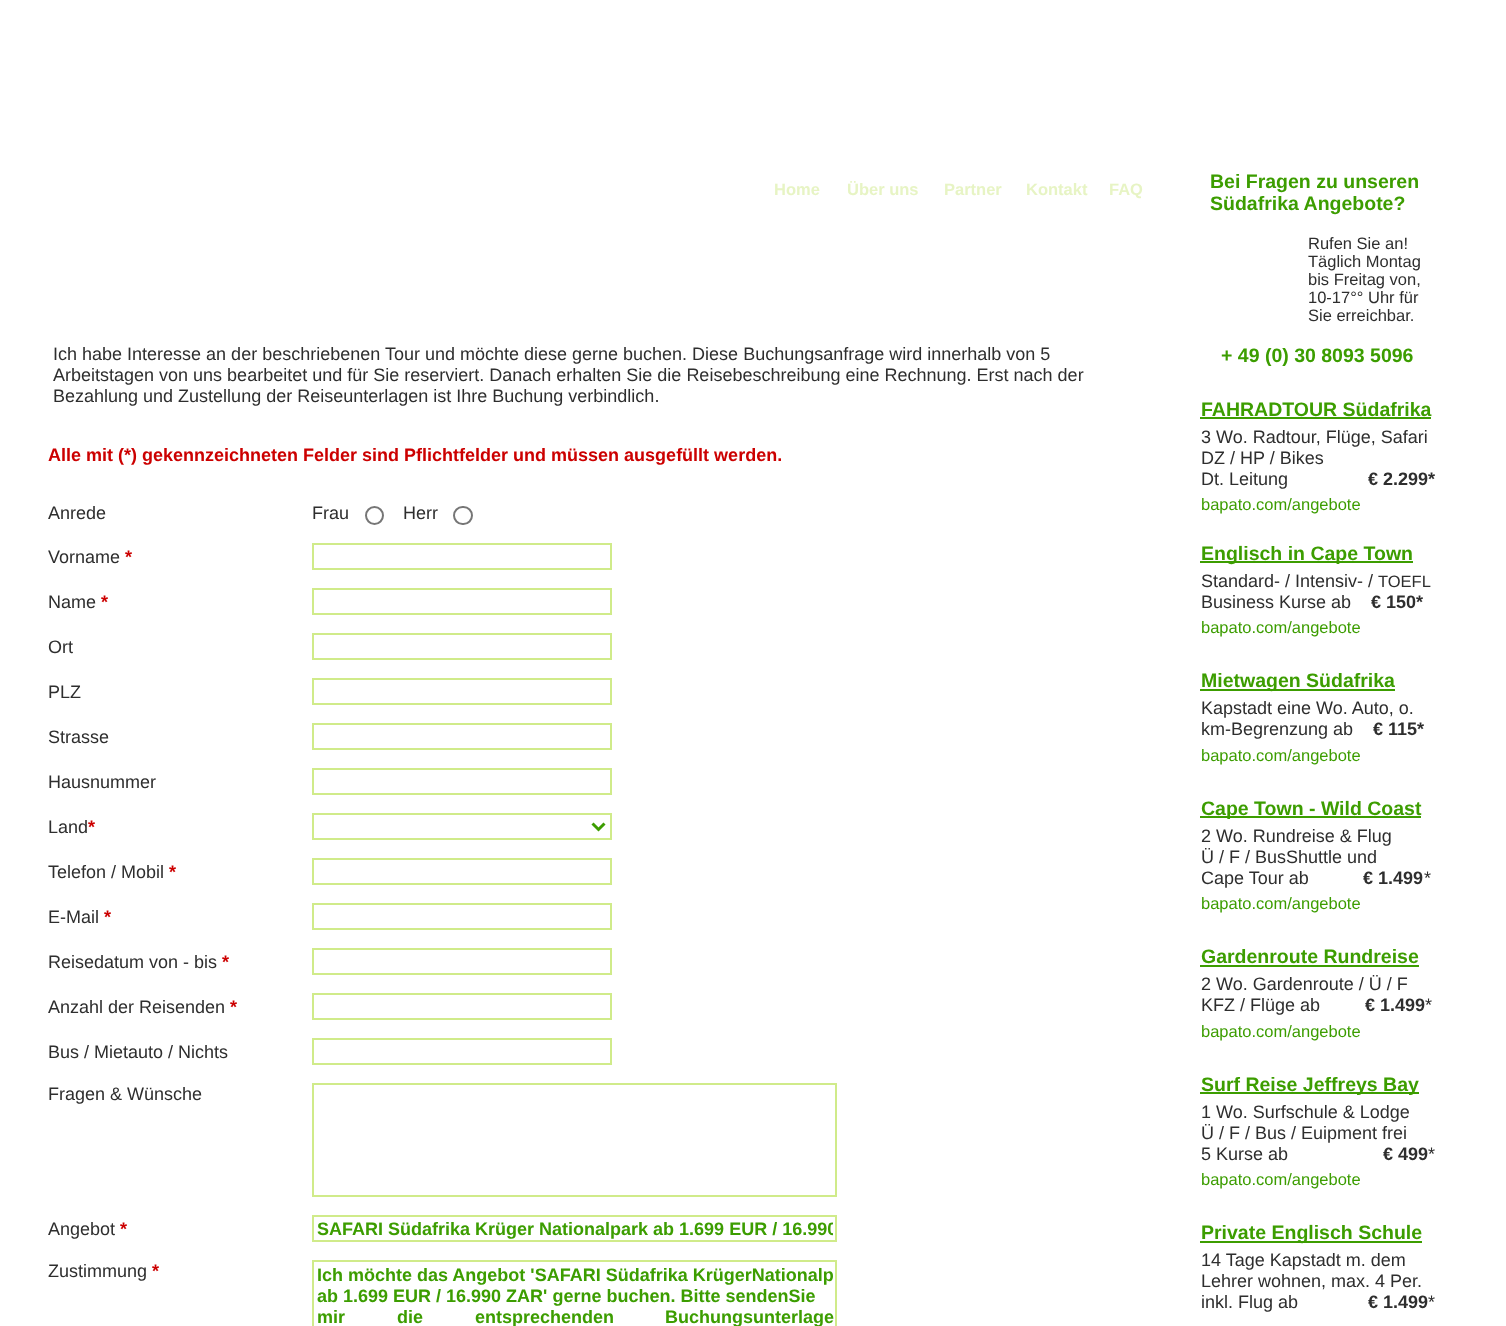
async function draw(canvas) {
  canvas.width = 1506;
  canvas.height = 1326;
  const ctx = canvas.getContext('2d');
  ctx.miterLimit = 4;
  ctx.fontKerning = 'normal';
  function label(s, x, y, font, color) {
    ctx.font = font;
    ctx.fillStyle = color;
    ctx.fillText(s, x, y);
  }
  function rect(x, y, w, h, color) {
    ctx.fillStyle = color;
    ctx.fillRect(x, y, w, h);
  }
  let path;

  rect(0, 0, 1506, 1326, '#fff');
  label('Home', 774, 195, 'bold 16.5px Liberation Sans', '#e7f4c4');
  label('Über uns', 847, 195, 'bold 16.5px Liberation Sans', '#e7f4c4');
  label('Partner', 944, 195, 'bold 16.5px Liberation Sans', '#e7f4c4');
  label('Kontakt', 1026, 195, 'bold 16.5px Liberation Sans', '#e7f4c4');
  label('FAQ', 1109, 195, 'bold 16.5px Liberation Sans', '#e7f4c4');
  label('Ich habe Interesse an der beschriebenen Tour und möchte diese gerne buchen. Diese Buchungsanfrage wird innerhalb von 5', 53, 360, '18px Liberation Sans', '#2e2e2e');
  label('Arbeitstagen von uns bearbeitet und für Sie reserviert. Danach erhalten Sie die Reisebeschreibung eine Rechnung. Erst nach der', 53, 381, '18px Liberation Sans', '#2e2e2e');
  label('Bezahlung und Zustellung der Reiseunterlagen ist Ihre Buchung verbindlich.', 53, 402, '18px Liberation Sans', '#2e2e2e');
  label('Alle mit (*) gekennzeichneten Felder sind Pflichtfelder und müssen ausgefüllt werden.', 48, 461, 'bold 18px Liberation Sans', '#c00');
  label('Anrede', 48, 519, '18px Liberation Sans', '#2e2e2e');
  label('Frau', 312, 519, '18px Liberation Sans', '#2e2e2e');
  ctx.beginPath();
  ctx.arc(374.5, 515.5, 8.5, 0, 2 * Math.PI);
  ctx.strokeStyle = '#767676';
  ctx.lineWidth = 2;
  ctx.stroke();
  label('Herr', 403, 519, '18px Liberation Sans', '#2e2e2e');
  ctx.beginPath();
  ctx.roundRect(454, 507, 18, 17, 8.5);
  ctx.stroke();
  label('Vorname', 48, 563, '18px Liberation Sans', '#2e2e2e');
  label('*', 125, 563, 'bold 18px Liberation Sans', '#c00');
  ctx.strokeStyle = '#d0eb8a';
  ctx.strokeRect(313, 544, 298, 25);
  label('Name', 48, 608, '18px Liberation Sans', '#2e2e2e');
  label('*', 101, 608, 'bold 18px Liberation Sans', '#c00');
  ctx.strokeRect(313, 589, 298, 25);
  label('Ort', 48, 653, '18px Liberation Sans', '#2e2e2e');
  ctx.strokeRect(313, 634, 298, 25);
  label('PLZ', 48, 698, '18px Liberation Sans', '#2e2e2e');
  ctx.strokeRect(313, 679, 298, 25);
  label('Strasse', 48, 743, '18px Liberation Sans', '#2e2e2e');
  ctx.strokeRect(313, 724, 298, 25);
  label('Hausnummer', 48, 788, '18px Liberation Sans', '#2e2e2e');
  ctx.strokeRect(313, 769, 298, 25);
  label('Land', 48, 833, '18px Liberation Sans', '#2e2e2e');
  label('*', 88, 833, 'bold 18px Liberation Sans', '#c00');
  ctx.strokeRect(313, 814, 298, 25);
  path = new Path2D('M592.5 823.5L598.5 829.5L604.5 823.5');
  ctx.strokeStyle = '#3c9d00';
  ctx.lineWidth = 3;
  ctx.stroke(path);
  label('Telefon / Mobil', 48, 878, '18px Liberation Sans', '#2e2e2e');
  label('*', 169, 878, 'bold 18px Liberation Sans', '#c00');
  ctx.strokeStyle = '#d0eb8a';
  ctx.lineWidth = 2;
  ctx.strokeRect(313, 859, 298, 25);
  label('E-Mail', 48, 923, '18px Liberation Sans', '#2e2e2e');
  label('*', 104, 923, 'bold 18px Liberation Sans', '#c00');
  ctx.strokeRect(313, 904, 298, 25);
  label('Reisedatum von - bis', 48, 968, '18px Liberation Sans', '#2e2e2e');
  label('*', 222, 968, 'bold 18px Liberation Sans', '#c00');
  ctx.strokeRect(313, 949, 298, 25);
  label('Anzahl der Reisenden', 48, 1013, '18px Liberation Sans', '#2e2e2e');
  label('*', 230, 1013, 'bold 18px Liberation Sans', '#c00');
  ctx.strokeRect(313, 994, 298, 25);
  label('Bus / Mietauto / Nichts', 48, 1058, '18px Liberation Sans', '#2e2e2e');
  ctx.strokeRect(313, 1039, 298, 25);
  label('Fragen & Wünsche', 48, 1100, '18px Liberation Sans', '#2e2e2e');
  ctx.strokeRect(313, 1084, 523, 112);
  label('Angebot', 48, 1235, '18px Liberation Sans', '#2e2e2e');
  label('*', 120, 1235, 'bold 18px Liberation Sans', '#c00');
  ctx.strokeRect(313, 1216, 523, 25);
  ctx.save();
  ctx.beginPath();
  ctx.rect(317, 1218, 516, 21);
  ctx.clip();
  label('SAFARI Südafrika Krüger Nationalpark ab 1.699 EUR / 16.990', 317, 1235, 'bold 18px Liberation Sans', '#3c9d00');
  ctx.restore();
  label('Zustimmung', 48, 1277, '18px Liberation Sans', '#2e2e2e');
  label('*', 152, 1277, 'bold 18px Liberation Sans', '#c00');
  ctx.strokeRect(313, 1261, 523, 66);
  label('Ich möchte das Angebot \'SAFARI Südafrika KrügerNationalp', 317, 1281, 'bold 18px Liberation Sans', '#3c9d00');
  label('ab 1.699 EUR / 16.990 ZAR\' gerne buchen. Bitte sendenSie', 317, 1302, 'bold 18px Liberation Sans', '#3c9d00');
  ctx.wordSpacing = '47px';
  label('mir die entsprechenden', 317, 1323, 'bold 18px Liberation Sans', '#3c9d00');
  ctx.wordSpacing = '0px';
  label('Buchungsunterlage', 665, 1323, 'bold 18px Liberation Sans', '#3c9d00');
  label('Bei Fragen zu unseren', 1210, 188, 'bold 19.5px Liberation Sans', '#3c9d00');
  label('Südafrika Angebote?', 1210, 210, 'bold 19.5px Liberation Sans', '#3c9d00');
  label('Rufen Sie an!', 1308, 249, '16.5px Liberation Sans', '#2e2e2e');
  label('Täglich Montag', 1308, 267, '16.5px Liberation Sans', '#2e2e2e');
  label('bis Freitag von,', 1308, 285, '16.5px Liberation Sans', '#2e2e2e');
  label('10-17°° Uhr für', 1308, 303, '16.5px Liberation Sans', '#2e2e2e');
  label('Sie erreichbar.', 1308, 321, '16.5px Liberation Sans', '#2e2e2e');
  label('+ 49 (0) 30 8093 5096', 1221, 362, 'bold 19.5px Liberation Sans', '#3c9d00');
  label('FAHRADTOUR Südafrika', 1201, 416, 'bold 19.5px Liberation Sans', '#3c9d00');
  rect(1200, 417, 231, 2, '#3c9d00');
  label('3 Wo. Radtour, Flüge, Safari', 1201, 443, '18px Liberation Sans', '#2e2e2e');
  label('DZ / HP / Bikes', 1201, 464, '18px Liberation Sans', '#2e2e2e');
  label('Dt. Leitung', 1201, 485, '18px Liberation Sans', '#2e2e2e');
  label('€ 2.299*', 1368, 485, 'bold 18px Liberation Sans', '#2e2e2e');
  label('bapato.com/angebote', 1201, 510, '16.5px Liberation Sans', '#3c9d00');
  rect(1200, 561, 213, 2, '#3c9d00');
  label('Englisch in Cape Town', 1201, 560, 'bold 19.5px Liberation Sans', '#3c9d00');
  label('Standard- / Intensiv- /', 1201, 587, '18px Liberation Sans', '#2e2e2e');
  label('TOEFL', 1378, 587, '16.5px Liberation Sans', '#2e2e2e');
  label('Business Kurse ab', 1201, 608, '18px Liberation Sans', '#2e2e2e');
  label('€ 150*', 1371, 608, 'bold 18px Liberation Sans', '#2e2e2e');
  label('bapato.com/angebote', 1201, 633, '16.5px Liberation Sans', '#3c9d00');
  rect(1200, 689, 195, 2, '#3c9d00');
  label('Mietwagen Südafrika', 1201, 687, 'bold 19.5px Liberation Sans', '#3c9d00');
  label('Kapstadt eine Wo. Auto, o.', 1201, 714, '18px Liberation Sans', '#2e2e2e');
  label('km-Begrenzung ab', 1201, 735, '18px Liberation Sans', '#2e2e2e');
  label('€ 115*', 1373, 735, 'bold 18px Liberation Sans', '#2e2e2e');
  label('bapato.com/angebote', 1201, 761, '16.5px Liberation Sans', '#3c9d00');
  rect(1200, 816, 221, 2, '#3c9d00');
  label('Cape Town - Wild Coast', 1201, 815, 'bold 19.5px Liberation Sans', '#3c9d00');
  label('2 Wo. Rundreise & Flug', 1201, 842, '18px Liberation Sans', '#2e2e2e');
  label('Ü / F / BusShuttle und', 1201, 863, '18px Liberation Sans', '#2e2e2e');
  label('Cape Tour ab', 1201, 884, '18px Liberation Sans', '#2e2e2e');
  label('€ 1.499', 1363, 884, 'bold 18px Liberation Sans', '#2e2e2e');
  label('*', 1424, 884, '18px Liberation Sans', '#2e2e2e');
  label('bapato.com/angebote', 1201, 909, '16.5px Liberation Sans', '#3c9d00');
  label('Gardenroute Rundreise', 1201, 963, 'bold 19.5px Liberation Sans', '#3c9d00');
  rect(1200, 965, 219, 2, '#3c9d00');
  label('2 Wo. Gardenroute / Ü / F', 1201, 990, '18px Liberation Sans', '#2e2e2e');
  label('KFZ / Flüge ab', 1201, 1011, '18px Liberation Sans', '#2e2e2e');
  label('€ 1.499', 1365, 1011, 'bold 18px Liberation Sans', '#2e2e2e');
  label('*', 1425, 1011, '18px Liberation Sans', '#2e2e2e');
  label('bapato.com/angebote', 1201, 1037, '16.5px Liberation Sans', '#3c9d00');
  rect(1200, 1092, 219, 2, '#3c9d00');
  label('Surf Reise Jeffreys Bay', 1201, 1091, 'bold 19.5px Liberation Sans', '#3c9d00');
  label('1 Wo. Surfschule & Lodge', 1201, 1118, '18px Liberation Sans', '#2e2e2e');
  label('Ü / F / Bus / Euipment frei', 1201, 1139, '18px Liberation Sans', '#2e2e2e');
  label('5 Kurse ab', 1201, 1160, '18px Liberation Sans', '#2e2e2e');
  label('€ 499', 1383, 1160, 'bold 18px Liberation Sans', '#2e2e2e');
  label('*', 1428, 1160, '18px Liberation Sans', '#2e2e2e');
  label('bapato.com/angebote', 1201, 1185, '16.5px Liberation Sans', '#3c9d00');
  rect(1200, 1241, 222, 2, '#3c9d00');
  label('Private Englisch Schule', 1201, 1239, 'bold 19.5px Liberation Sans', '#3c9d00');
  label('14 Tage Kapstadt m. dem', 1201, 1266, '18px Liberation Sans', '#2e2e2e');
  label('Lehrer wohnen, max. 4 Per.', 1201, 1287, '18px Liberation Sans', '#2e2e2e');
  label('inkl. Flug ab', 1201, 1308, '18px Liberation Sans', '#2e2e2e');
  label('€ 1.499', 1368, 1308, 'bold 18px Liberation Sans', '#2e2e2e');
  label('*', 1428, 1308, '18px Liberation Sans', '#2e2e2e');
}

draw(document.querySelector('canvas'));
